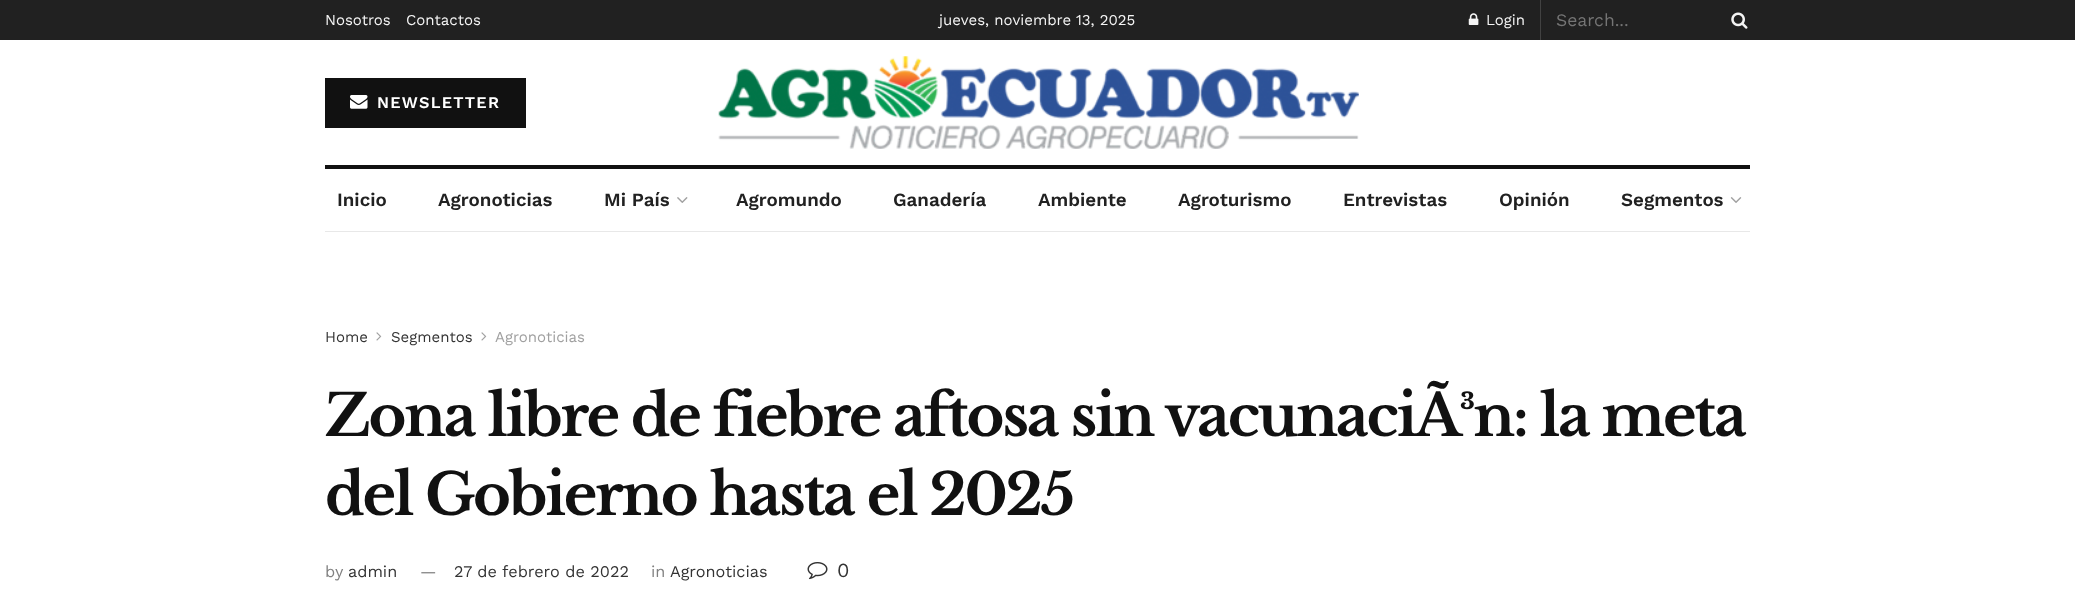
async function draw(canvas) {
  canvas.width = 2075;
  canvas.height = 599;
  const ctx = canvas.getContext('2d');
  ctx.miterLimit = 4;
  ctx.fontKerning = 'normal';
  function label(s, x, y, font, color) {
    ctx.font = font;
    ctx.fillStyle = color;
    ctx.fillText(s, x, y);
  }
  function rect(x, y, w, h, color) {
    ctx.fillStyle = color;
    ctx.fillRect(x, y, w, h);
  }
  async function image(src, x, y, w, h) {
    const img = new Image();
    img.src = src;
    await img.decode();
    ctx.drawImage(img, x, y, w, h);
  }

  rect(0, 0, 2075, 599, '#fff');
  rect(0, 0, 2075, 40, '#212121');
  label('Nosotros', 325, 25, '15px Work Sans', '#f5f5f5');
  label('Contactos', 406, 25, '15px Work Sans', '#f5f5f5');
  label('jueves, noviembre 13, 2025', 939, 25, '15px Work Sans', '#f5f5f5');
  rect(1540, 0, 1, 40, '#424242');
  await image('assets/img1.png', 1468, 13, 11, 12);
  label('Login', 1486, 25, '15px Work Sans', '#f5f5f5');
  label('Search...', 1556, 26, '17.5px Work Sans', '#757575');
  await image('assets/img2.png', 1731, 12, 17, 17);
  rect(325, 78, 201, 50, '#111');
  await image('assets/img3.png', 350, 95, 18, 14);
  ctx.letterSpacing = '1.25px';
  label('NEWSLETTER', 377, 108, '600 16.25px Work Sans', '#fff');
  await image('assets/img4.png', 718, 56, 641, 93);
  rect(325, 165, 1425, 4, '#111');
  rect(325, 231, 1425, 1, '#e8e8e8');
  ctx.letterSpacing = '0px';
  label('Inicio', 337, 206, '600 18.75px Work Sans', '#212121');
  label('Agronoticias', 438, 206, '600 18.75px Work Sans', '#212121');
  label('Mi País', 604, 206, '600 18.75px Work Sans', '#212121');
  await image('assets/img5.png', 677, 197, 11, 6);
  label('Agromundo', 736, 206, '600 18.75px Work Sans', '#212121');
  label('Ganadería', 893, 206, '600 18.75px Work Sans', '#212121');
  label('Ambiente', 1038, 206, '600 18.75px Work Sans', '#212121');
  label('Agroturismo', 1178, 206, '600 18.75px Work Sans', '#212121');
  label('Entrevistas', 1343, 206, '600 18.75px Work Sans', '#212121');
  label('Opinión', 1499, 206, '600 18.75px Work Sans', '#212121');
  label('Segmentos', 1621, 206, '600 18.75px Work Sans', '#212121');
  await image('assets/img6.png', 1730, 197, 12, 6);
  label('Home', 325, 342, '15px Work Sans', '#333');
  await image('assets/img7.png', 376, 332, 6, 9);
  label('Segmentos', 391, 342, '15px Work Sans', '#333');
  await image('assets/img7.png', 481, 332, 6, 9);
  label('Agronoticias', 495, 342, '15px Work Sans', '#a0a0a0');
  ctx.letterSpacing = '-2.3px';
  label('Zona libre de fiebre aftosa sin vacunaciÃ³n: la meta', 325, 436, 'bold 57.5px Libre Baskerville', '#111');
  label('del Gobierno hasta el 2025', 325, 515, 'bold 57.5px Libre Baskerville', '#111');
  ctx.letterSpacing = '0px';
  label('by', 325, 577, '16.25px Work Sans', '#808080');
  label('admin', 348, 577, '16.25px Work Sans', '#333');
  label('—', 420, 577, '16.25px Work Sans', '#808080');
  label('27 de febrero de 2022', 454, 577, '16.25px Work Sans', '#333');
  label('in', 651, 577, '16.25px Work Sans', '#808080');
  label('Agronoticias', 670, 577, '16.25px Work Sans', '#333');
  await image('assets/img8.png', 807, 562, 21, 18);
  label('0', 837, 577, '20px Work Sans', '#333');
}

draw(document.querySelector('canvas'));
